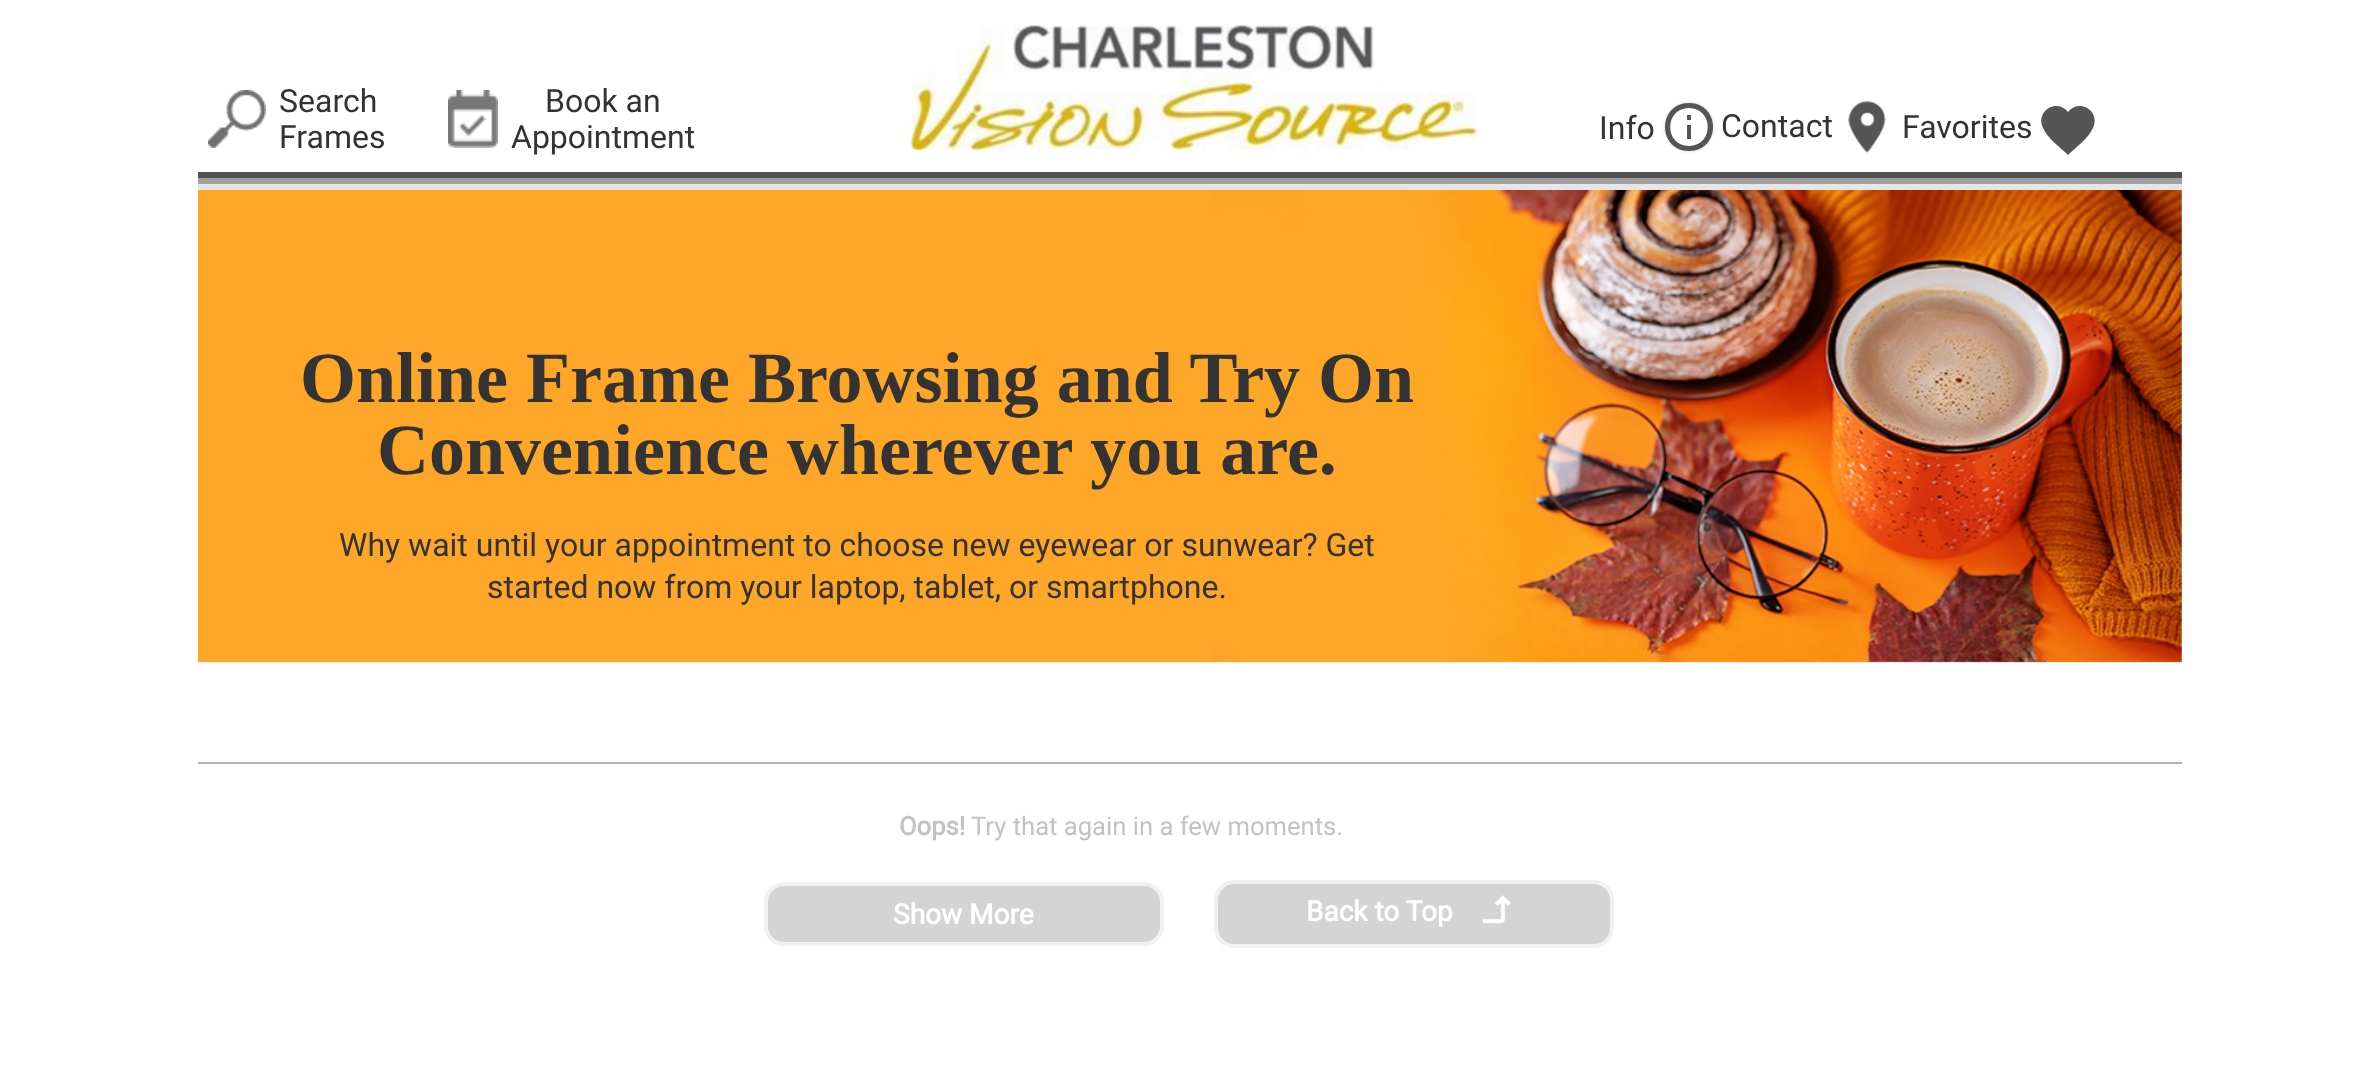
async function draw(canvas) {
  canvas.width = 2377;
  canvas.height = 1072;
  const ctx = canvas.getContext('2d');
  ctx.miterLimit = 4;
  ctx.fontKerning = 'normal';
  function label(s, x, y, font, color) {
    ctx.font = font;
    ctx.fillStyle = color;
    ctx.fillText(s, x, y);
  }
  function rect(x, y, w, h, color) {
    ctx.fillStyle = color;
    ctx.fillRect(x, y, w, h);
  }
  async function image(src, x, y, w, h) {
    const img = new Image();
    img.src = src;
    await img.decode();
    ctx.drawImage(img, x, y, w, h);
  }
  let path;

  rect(0, 0, 2377, 1072, '#fff');
  rect(198, 184, 1984, 6, '#e6e6e6');
  rect(198, 178, 1984, 6, '#a1a1a1');
  rect(198, 172, 1984, 6, '#515151');
  await image('assets/img1.png', 208, 90, 58, 58);
  label('Search', 279, 112, '32px Roboto', '#333');
  label('Frames', 279, 148, '32px Roboto', '#333');
  await image('assets/img2.png', 448, 90, 50, 58);
  label('Book an', 545, 112, '32px Roboto', '#333');
  label('Appointment', 511, 148, '32px Roboto', '#333');
  await image('assets/img3.png', 911, 25, 566, 125);
  label('Info', 1599, 139, '32px Roboto', '#333');
  ctx.save();
  path = new Path2D('M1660 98H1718V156H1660ZM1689 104C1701.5 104 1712 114.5 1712 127C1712 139.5 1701.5 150 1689 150C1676.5 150 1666 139.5 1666 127C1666 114.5 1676.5 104 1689 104Z');
  ctx.clip(path, 'evenodd');
  ctx.fillStyle = '#0000001a';
  ctx.filter = 'blur(1px)';
  ctx.beginPath();
  ctx.roundRect(1664, 102, 50, 50, 25);
  ctx.fill();
  ctx.filter = 'none';
  ctx.restore();
  ctx.fillStyle = '#555';
  path = new Path2D('M1687 115H1691V120H1687ZM1687 125H1691V139H1687ZM1689 103C1657 103 1657 151 1689 151C1721 151 1721 103 1689 103ZM1689 146C1664 146 1664 108 1689 108C1714 108 1714 146 1689 146Z');
  ctx.fill(path);
  label('Contact', 1721, 137, '32px Roboto', '#333');
  await image('assets/img4.png', 1848, 101, 38, 52);
  label('Favorites', 1902, 138, '32px Roboto', '#333');
  ctx.fillStyle = '#555';
  path = new Path2D('M2068 155C2060 147 2048 139 2043 128C2035 111 2057 98 2068 112C2079 98 2101 111 2093 128C2088 139 2076 147 2068 155Z');
  ctx.fill(path);
  rect(198, 762, 1984, 2, '#b1b1b1');
  await image('assets/img5.png', 198, 190, 1984, 473);
  label('Online Frame Browsing and Try On', 300, 402, 'bold 72px Liberation Serif', '#333');
  label('Convenience wherever you are.', 377, 474, 'bold 72px Liberation Serif', '#333');
  label('Why wait until your appointment to choose new eyewear or sunwear? Get', 339, 556, '32px Roboto', '#333');
  label('started now from your laptop, tablet, or smartphone.', 487, 598, '32px Roboto', '#333');
  label('Oops!', 899, 835, 'bold 25.6px Roboto', '#c2c2c2');
  label('Try that again in a few moments.', 971, 835, '25.6px Roboto', '#c2c2c2');
  ctx.fillStyle = '#d4d4d4';
  ctx.beginPath();
  ctx.roundRect(766, 884, 396, 60, 18);
  ctx.fill();
  ctx.strokeStyle = '#f2f1f1';
  ctx.lineWidth = 4;
  ctx.stroke();
  label('Show More', 893, 924, 'bold 28px Roboto', '#fff');
  ctx.fillStyle = '#d4d4d4';
  ctx.beginPath();
  ctx.roundRect(1216, 882, 396, 64, 18);
  ctx.fill();
  ctx.stroke();
  label('Back to Top', 1306, 921, 'bold 28px Roboto', '#fff');
  await image('assets/img6.png', 1482, 895, 29, 29);
}

draw(document.querySelector('canvas'));
